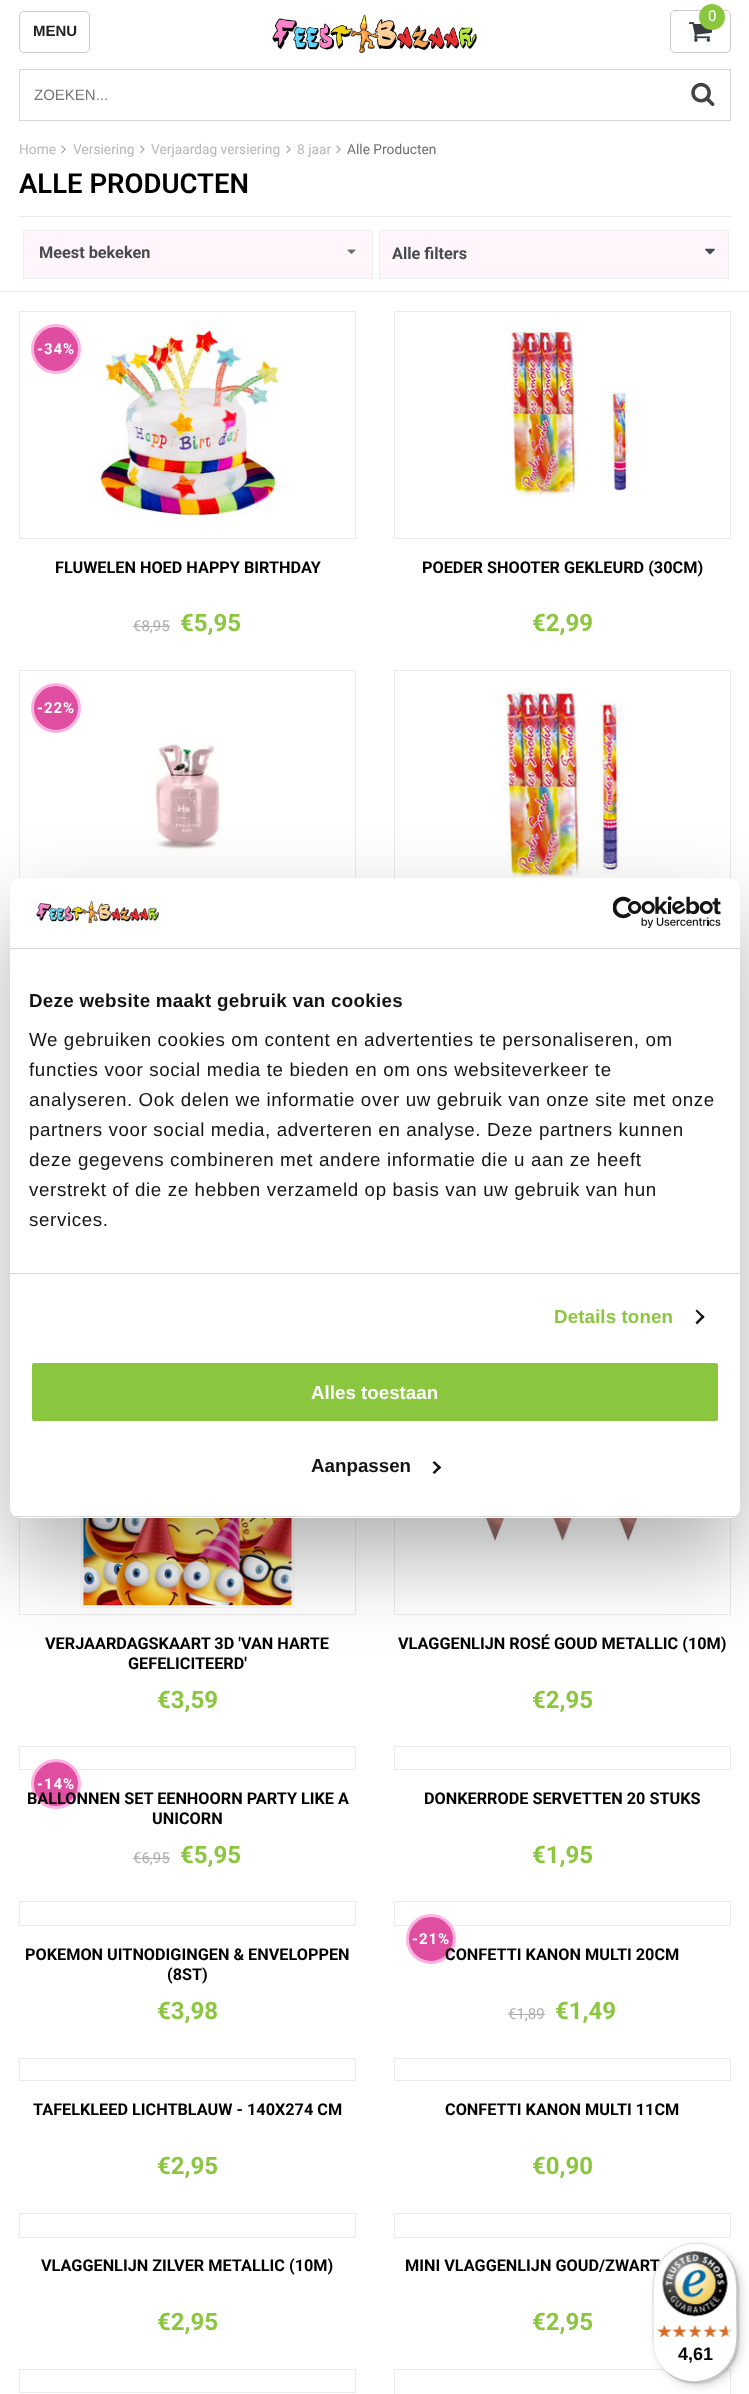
async function draw(canvas) {
  canvas.width = 749;
  canvas.height = 2394;
  const ctx = canvas.getContext('2d');
  ctx.miterLimit = 4;
  ctx.fontKerning = 'normal';
  function label(s, x, y, font, color) {
    ctx.font = font;
    ctx.fillStyle = color;
    ctx.fillText(s, x, y);
  }
  function rect(x, y, w, h, color) {
    ctx.fillStyle = color;
    ctx.fillRect(x, y, w, h);
  }
  function roundedRect(x, y, w, h, r, color) {
    ctx.fillStyle = color;
    ctx.beginPath();
    ctx.roundRect(x, y, w, h, r);
    ctx.fill();
  }
  async function image(src, x, y, w, h) {
    const img = new Image();
    img.src = src;
    await img.decode();
    ctx.drawImage(img, x, y, w, h);
  }
  let path;

  rect(0, 0, 749, 2394, '#fff');
  ctx.beginPath();
  ctx.roundRect(19.5, 11.5, 70, 41, 4.5);
  ctx.strokeStyle = '#ccc';
  ctx.stroke();
  label('MENU', 33, 36, 'bold 15px Liberation Sans', '#212121');
  await image('assets/img1.png', 272, 14, 205, 39);
  ctx.beginPath();
  ctx.roundRect(670.5, 10.5, 60, 42, 4.5);
  ctx.stroke();
  await image('assets/img2.png', 688, 22, 24, 20);
  ctx.fillStyle = '#8bc63f';
  ctx.beginPath();
  ctx.arc(712, 17, 13, 0, 2 * Math.PI);
  ctx.fill();
  label('0', 708, 21, '15px Roboto', '#fff');
  ctx.strokeStyle = '#d6d6d6';
  ctx.strokeRect(19.5, 69.5, 711, 51);
  label('ZOEKEN...', 34, 100, '15px Liberation Sans', '#757575');
  await image('assets/img3.png', 691, 82, 24, 25);
  label('Home', 19, 154, '13.75px Roboto', '#b5b7b8');
  await image('assets/img4.png', 61, 145, 5, 8);
  label('Versiering', 73, 154, '13.75px Roboto', '#b5b7b8');
  await image('assets/img5.png', 140, 145, 5, 9);
  label('Verjaardag versiering', 151, 154, '13.75px Roboto', '#b5b7b8');
  await image('assets/img4.png', 286, 145, 5, 8);
  label('8 jaar', 297, 154, '13.75px Roboto', '#b5b7b8');
  await image('assets/img4.png', 336, 145, 5, 8);
  label('Alle Producten', 347, 154, '13.75px Roboto', '#6b6f71');
  label('ALLE PRODUCTEN', 19, 193, '600 27.5px Roboto', '#000');
  rect(19, 216, 712, 1, '#eaeaea');
  rect(0, 291, 749, 1, '#e5e5e5');
  ctx.fillStyle = '#fff5fb';
  ctx.beginPath();
  ctx.rect(23.5, 230.5, 349, 48);
  ctx.fill();
  ctx.strokeStyle = '#eee';
  ctx.stroke();
  label('Meest bekeken', 39, 258, 'bold 16.25px Roboto', '#464b4e');
  await image('assets/img6.png', 347, 249, 9, 5);
  ctx.fillStyle = '#fff5fb';
  ctx.beginPath();
  ctx.rect(379.5, 230.5, 349, 48);
  ctx.fill();
  ctx.stroke();
  label('Alle filters', 392, 259, 'bold 16.25px Roboto', '#464b4e');
  await image('assets/img7.png', 705, 248, 10, 7);
  ctx.strokeStyle = '#eaeaea';
  ctx.strokeRect(19.5, 311.5, 336, 227);
  await image('assets/img8.png', 98, 328, 181, 188);
  ctx.fillStyle = '#e04ea1';
  ctx.beginPath();
  ctx.arc(56, 349, 23.5, 0, 2 * Math.PI);
  ctx.fill();
  ctx.strokeStyle = '#ffb2e1';
  ctx.lineWidth = 3;
  ctx.stroke();
  ctx.letterSpacing = '1px';
  label('-34%', 37, 354, 'bold 15px Roboto', '#fff');
  ctx.letterSpacing = '0px';
  label('FLUWELEN HOED HAPPY BIRTHDAY', 55, 573, 'bold 16.25px Roboto', '#000');
  label('€8,95', 133, 631, '15px Roboto', '#adadad');
  rect(133, 626, 37, 1, '#adadad');
  label('€5,95', 180, 631, 'bold 24px Roboto', '#8bc63f');
  ctx.strokeStyle = '#eaeaea';
  ctx.lineWidth = 1;
  ctx.strokeRect(394.5, 311.5, 336, 227);
  await image('assets/img9.png', 505, 328, 125, 172);
  label('POEDER SHOOTER GEKLEURD (30CM)', 422, 573, 'bold 16.25px Roboto', '#000');
  label('€2,99', 532, 631, 'bold 24px Roboto', '#8bc63f');
  ctx.strokeRect(19.5, 670.5, 336, 227);
  await image('assets/img10.png', 153, 742, 71, 109);
  ctx.fillStyle = '#e04ea1';
  ctx.beginPath();
  ctx.arc(56, 708, 23.5, 0, 2 * Math.PI);
  ctx.fill();
  ctx.strokeStyle = '#ffb2e1';
  ctx.lineWidth = 3;
  ctx.stroke();
  ctx.letterSpacing = '1px';
  label('-22%', 37, 713, 'bold 15px Roboto', '#fff');
  ctx.strokeStyle = '#eaeaea';
  ctx.lineWidth = 1;
  ctx.strokeRect(394.5, 670.5, 336, 227);
  await image('assets/img11.png', 505, 687, 117, 191);
  ctx.strokeRect(19.5, 1388.5, 336, 226);
  await image('assets/img12.png', 80, 1518, 215, 90);
  ctx.letterSpacing = '0px';
  label('VERJAARDAGSKAART 3D \'VAN HARTE', 45, 1649, 'bold 16.25px Roboto', '#000');
  label('GEFELICITEERD\'', 128, 1669, 'bold 16.25px Roboto', '#000');
  label('€3,59', 157, 1708, 'bold 24px Roboto', '#8bc63f');
  ctx.strokeRect(394.5, 1388.5, 336, 226);
  await image('assets/img13.png', 450, 1518, 225, 27);
  label('VLAGGENLIJN ROSÉ GOUD METALLIC (10M)', 398, 1649, 'bold 16.25px Roboto', '#000');
  label('€2,95', 532, 1708, 'bold 24px Roboto', '#8bc63f');
  ctx.strokeRect(19.5, 1746.5, 336, 23);
  ctx.fillStyle = '#e04ea1';
  ctx.beginPath();
  ctx.arc(56, 1784, 23.5, 0, 2 * Math.PI);
  ctx.fill();
  ctx.strokeStyle = '#ffb2e1';
  ctx.lineWidth = 3;
  ctx.stroke();
  ctx.letterSpacing = '1px';
  label('-14%', 37, 1789, 'bold 15px Roboto', '#fff');
  ctx.letterSpacing = '0px';
  label('BALLONNEN SET EENHOORN PARTY LIKE A', 27, 1804, 'bold 16.25px Roboto', '#000');
  label('UNICORN', 152, 1824, 'bold 16.25px Roboto', '#000');
  label('€6,95', 133, 1863, '15px Roboto', '#adadad');
  rect(133, 1858, 37, 1, '#adadad');
  label('€5,95', 180, 1863, 'bold 24px Roboto', '#8bc63f');
  ctx.strokeStyle = '#eaeaea';
  ctx.lineWidth = 1;
  ctx.strokeRect(394.5, 1746.5, 336, 23);
  label('DONKERRODE SERVETTEN 20 STUKS', 424, 1804, 'bold 16.25px Roboto', '#000');
  label('€1,95', 532, 1863, 'bold 24px Roboto', '#8bc63f');
  ctx.strokeRect(19.5, 1901.5, 336, 24);
  label('POKEMON UITNODIGINGEN & ENVELOPPEN', 25, 1960, 'bold 16.25px Roboto', '#000');
  label('(8ST)', 167, 1980, 'bold 16.25px Roboto', '#000');
  label('€3,98', 157, 2019, 'bold 24px Roboto', '#8bc63f');
  ctx.strokeRect(394.5, 1901.5, 336, 24);
  ctx.fillStyle = '#e04ea1';
  ctx.beginPath();
  ctx.arc(431, 1939, 23.5, 0, 2 * Math.PI);
  ctx.fill();
  ctx.strokeStyle = '#ffb2e1';
  ctx.lineWidth = 3;
  ctx.stroke();
  ctx.letterSpacing = '1px';
  label('-21%', 412, 1944, 'bold 15px Roboto', '#fff');
  ctx.letterSpacing = '0px';
  label('CONFETTI KANON MULTI 20CM', 445, 1960, 'bold 16.25px Roboto', '#000');
  label('€1,89', 508, 2019, '15px Roboto', '#adadad');
  rect(508, 2014, 37, 1, '#adadad');
  label('€1,49', 555, 2019, 'bold 24px Roboto', '#8bc63f');
  ctx.strokeStyle = '#eaeaea';
  ctx.lineWidth = 1;
  ctx.strokeRect(19.5, 2058.5, 336, 22);
  label('TAFELKLEED LICHTBLAUW - 140X274 CM', 33, 2115, 'bold 16.25px Roboto', '#000');
  label('€2,95', 157, 2174, 'bold 24px Roboto', '#8bc63f');
  ctx.strokeRect(394.5, 2058.5, 336, 22);
  label('CONFETTI KANON MULTI 11CM', 445, 2115, 'bold 16.25px Roboto', '#000');
  label('€0,90', 532, 2174, 'bold 24px Roboto', '#8bc63f');
  ctx.strokeRect(19.5, 2213.5, 336, 24);
  label('VLAGGENLIJN ZILVER METALLIC (10M)', 41, 2271, 'bold 16.25px Roboto', '#000');
  label('€2,95', 157, 2330, 'bold 24px Roboto', '#8bc63f');
  ctx.strokeRect(394.5, 2213.5, 336, 24);
  label('MINI VLAGGENLIJN GOUD/ZWART', 405, 2271, 'bold 16.25px Roboto', '#000');
  label('€2,95', 532, 2330, 'bold 24px Roboto', '#8bc63f');
  ctx.strokeRect(19.5, 2369.5, 336, 23);
  ctx.strokeRect(394.5, 2369.5, 336, 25);
  ctx.fillStyle = '#0000004d';
  ctx.filter = 'blur(42.5px)';
  ctx.beginPath();
  ctx.roundRect(10, 918, 730, 640, 10);
  ctx.fill();
  ctx.filter = 'none';
  roundedRect(10, 878, 730, 640, 10, '#fff');
  rect(10, 948, 730, 1, '#d6d6d6');
  await image('assets/img14.png', 36, 900, 123, 24);
  await image('assets/img15.png', 613, 896, 108, 32);
  rect(10, 1273, 730, 1, '#d6d6d6');
  ctx.letterSpacing = '0.3px';
  label('Deze website maakt gebruik van cookies', 29, 1007, 'bold 18.75px Liberation Sans', '#141414');
  ctx.letterSpacing = '0.62px';
  label('We gebruiken cookies om content en advertenties te personaliseren, om', 29, 1046, '18.75px Liberation Sans', '#141414');
  label('functies voor social media te bieden en om ons websiteverkeer te', 29, 1076, '18.75px Liberation Sans', '#141414');
  label('analyseren. Ook delen we informatie over uw gebruik van onze site met onze', 29, 1106, '18.75px Liberation Sans', '#141414');
  label('partners voor social media, adverteren en analyse. Deze partners kunnen', 29, 1136, '18.75px Liberation Sans', '#141414');
  label('deze gegevens combineren met andere informatie die u aan ze heeft', 29, 1166, '18.75px Liberation Sans', '#141414');
  label('verstrekt of die ze hebben verzameld op basis van uw gebruik van hun', 29, 1196, '18.75px Liberation Sans', '#141414');
  label('services.', 29, 1226, '18.75px Liberation Sans', '#141414');
  ctx.letterSpacing = '0.1px';
  label('Details tonen', 554, 1323, 'bold 18.75px Liberation Sans', '#8bc63f');
  ctx.fillStyle = '#141414';
  path = new Path2D('M697 1309.5L704.5 1317L703 1318.5L695.5 1311Z');
  ctx.fill(path);
  path = new Path2D('M703 1315L704.5 1317L697 1324.5L695.5 1322.5Z');
  ctx.fill(path);
  ctx.save();
  ctx.beginPath();
  ctx.roundRect(10, 878, 730, 640, 10);
  ctx.clip();
  rect(10, 1516, 730, 1, '#d6d6d6');
  ctx.restore();
  ctx.fillStyle = '#8bc63f';
  ctx.beginPath();
  ctx.roundRect(30.5, 1361.5, 689, 61, 3.5);
  ctx.fill();
  ctx.strokeStyle = '#fff';
  ctx.lineWidth = 3;
  ctx.stroke();
  ctx.letterSpacing = '0px';
  label('Alles toestaan', 311, 1399, 'bold 18.75px Liberation Sans', '#fff');
  label('Aanpassen', 311, 1472, 'bold 18.75px Liberation Sans', '#141414');
  path = new Path2D('M434.5 1461L441 1467.5L439.5 1469.5L432.5 1462.5Z');
  ctx.fill(path);
  path = new Path2D('M439.5 1465.5L441 1467.5L434.5 1474L432.5 1472.5Z');
  ctx.fill(path);
  ctx.fillStyle = '#00000026';
  ctx.filter = 'blur(5px)';
  ctx.beginPath();
  ctx.roundRect(656, 2246, 85, 140, 42.5);
  ctx.fill();
  ctx.filter = 'none';
  ctx.filter = 'blur(1px)';
  ctx.beginPath();
  ctx.roundRect(654, 2244, 85, 140, 42.5);
  ctx.fill();
  ctx.filter = 'none';
  roundedRect(653, 2243, 85, 140, 42.5, '#fff');
  ctx.fillStyle = '#0000001a';
  path = new Path2D('M696 2244C708 2244 718 2248 726 2256C705 2234 668 2241 656 2269C651 2281 653 2299 653 2313C653 2334 650 2355 666 2371C658 2363 654 2353 654 2341V2286C654 2263 673 2244 696 2244Z');
  ctx.fill(path);
  ctx.fillStyle = '#00000033';
  path = new Path2D('M665 2370C685 2392 723 2385 735 2357C740 2345 738 2327 738 2313C738 2292 742 2270 725 2255C739 2270 736 2292 736 2312C736 2325 738 2343 733 2355C721 2383 686 2389 665 2370Z');
  ctx.fill(path);
  ctx.fillStyle = '#32323233';
  path = new Path2D('M665 2371C686 2391 723 2385 735 2357C740 2345 738 2327 738 2313C738 2292 741 2271 726 2255C733 2263 737 2273 737 2284V2339C737 2363 718 2382 694 2382C683 2382 673 2378 665 2371Z');
  ctx.fill(path);
  ctx.fillStyle = '#ffffff4d';
  path = new Path2D('M665 2371C686 2391 723 2385 735 2357C740 2345 738 2327 738 2313C738 2292 741 2271 726 2255C733 2263 737 2273 737 2284V2339C737 2363 718 2382 694 2382C683 2382 673 2378 665 2371Z');
  ctx.fill(path);
  await image('assets/img16.png', 662, 2251, 66, 66);
  await image('assets/img17.png', 657, 2325, 14, 13);
  await image('assets/img18.png', 674, 2325, 12, 12);
  await image('assets/img19.png', 689, 2325, 12, 13);
  await image('assets/img20.png', 704, 2325, 14, 12);
  await image('assets/img21.png', 719, 2325, 14, 13);
  await image('assets/img22.png', 657, 2325, 15, 12);
  await image('assets/img23.png', 672, 2325, 15, 12);
  await image('assets/img24.png', 688, 2325, 14, 12);
  await image('assets/img25.png', 703, 2325, 14, 12);
  await image('assets/img26.png', 718, 2325, 10, 12);
  label('4,61', 678, 2360, 'bold 18px Liberation Sans', '#000');
}

draw(document.querySelector('canvas'));
